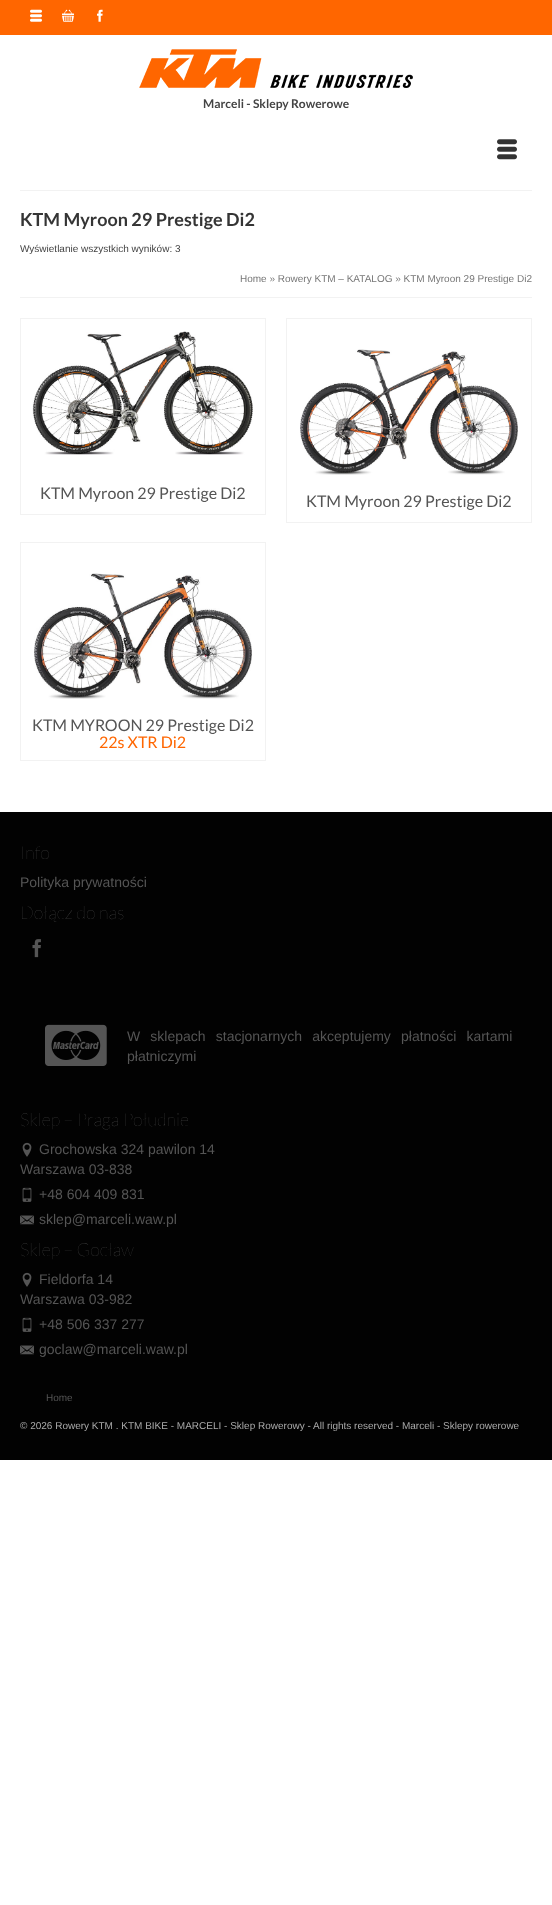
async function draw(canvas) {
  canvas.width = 552;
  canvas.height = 1905;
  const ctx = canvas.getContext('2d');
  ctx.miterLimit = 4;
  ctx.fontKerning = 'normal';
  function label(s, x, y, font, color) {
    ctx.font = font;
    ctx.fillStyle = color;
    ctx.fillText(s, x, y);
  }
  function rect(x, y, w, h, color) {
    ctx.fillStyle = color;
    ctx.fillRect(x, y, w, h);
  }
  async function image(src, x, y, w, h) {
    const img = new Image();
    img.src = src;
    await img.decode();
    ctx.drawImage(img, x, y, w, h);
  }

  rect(0, 0, 552, 1905, '#fff');
  rect(0, 0, 552, 35, '#f60');
  await image('assets/img1.png', 30, 9, 12, 13);
  await image('assets/img2.png', 62, 9, 12, 13);
  await image('assets/img3.png', 97, 9, 6, 13);
  await image('assets/img4.png', 139, 49, 274, 39);
  label('Marceli - Sklepy Rowerowe', 203, 108, 'bold 12px Lato', '#444');
  await image('assets/img5.png', 497, 139, 20, 21);
  rect(20, 190, 512, 1, '#f2f2f2');
  rect(20, 297, 512, 1, '#f2f2f2');
  label('KTM Myroon 29 Prestige Di2', 20, 226, 'bold 18px Lato', '#353535');
  label('Wyświetlanie wszystkich wyników: 3', 20, 252, '10px Liberation Sans', '#444');
  label('Home » Rowery KTM – KATALOG » KTM Myroon 29 Prestige Di2', 240, 282, '10px Liberation Sans', '#777');
  ctx.strokeStyle = '#f2f2f2';
  ctx.strokeRect(20.5, 318.5, 245, 196);
  await image('assets/img6.png', 32, 331, 221, 124);
  label('KTM Myroon 29 Prestige Di2', 40, 499, '16px Lato', '#555');
  ctx.strokeRect(286.5, 318.5, 245, 204);
  await image('assets/img7.png', 300, 349, 218, 126);
  label('KTM Myroon 29 Prestige Di2', 306, 507, '16px Lato', '#555');
  ctx.strokeRect(20.5, 542.5, 245, 218);
  await image('assets/img8.png', 34, 573, 218, 126);
  label('KTM MYROON 29 Prestige Di2', 32, 731, '16px Lato', '#555');
  label('22s XTR Di2', 99, 748, '16px Lato', '#f60');
  rect(0, 812, 552, 648, '#020202');
  label('Info', 20, 859, '100 18px Lato', '#555');
  label('Polityka prywatności', 20, 887, '14px Liberation Sans', '#555');
  label('Dołącz do nas', 20, 919, '100 18px Lato', '#555');
  await image('assets/img9.png', 32, 939, 9, 19);
  await image('assets/img10.png', 45, 1024, 62, 42);
  ctx.wordSpacing = '6.25px';
  label('W sklepach stacjonarnych akceptujemy płatności kartami', 127, 1041, '14px Liberation Sans', '#555');
  ctx.wordSpacing = '0px';
  label('płatniczymi', 127, 1061, '14px Liberation Sans', '#555');
  label('Sklep – Praga Południe', 20, 1126, '100 18px Lato', '#555');
  await image('assets/img11.png', 22, 1142, 10, 15);
  label('Grochowska 324 pawilon 14', 39, 1154, '14px Liberation Sans', '#555');
  label('Warszawa 03-838', 20, 1174, '14px Liberation Sans', '#555');
  await image('assets/img12.png', 22, 1187, 10, 15);
  label('+48 604 409 831', 39, 1199, '14px Liberation Sans', '#555');
  await image('assets/img13.png', 20, 1215, 14, 10);
  label('sklep@marceli.waw.pl', 39, 1224, '14px Liberation Sans', '#555');
  label('Sklep – Gocław', 20, 1256, '100 18px Lato', '#555');
  await image('assets/img11.png', 22, 1272, 10, 15);
  label('Fieldorfa 14', 39, 1284, '14px Liberation Sans', '#555');
  label('Warszawa 03-982', 20, 1304, '14px Liberation Sans', '#555');
  await image('assets/img12.png', 22, 1317, 10, 15);
  label('+48 506 337 277', 39, 1329, '14px Liberation Sans', '#555');
  await image('assets/img13.png', 20, 1345, 14, 10);
  label('goclaw@marceli.waw.pl', 39, 1354, '14px Liberation Sans', '#555');
  label('Home', 46, 1401, '10px Liberation Sans', '#555');
  label('© 2026 Rowery KTM . KTM BIKE - MARCELI - Sklep Rowerowy - All rights reserved - Marceli - Sklepy rowerowe', 20, 1429, '10px Liberation Sans', '#aaa');
}

draw(document.querySelector('canvas'));
